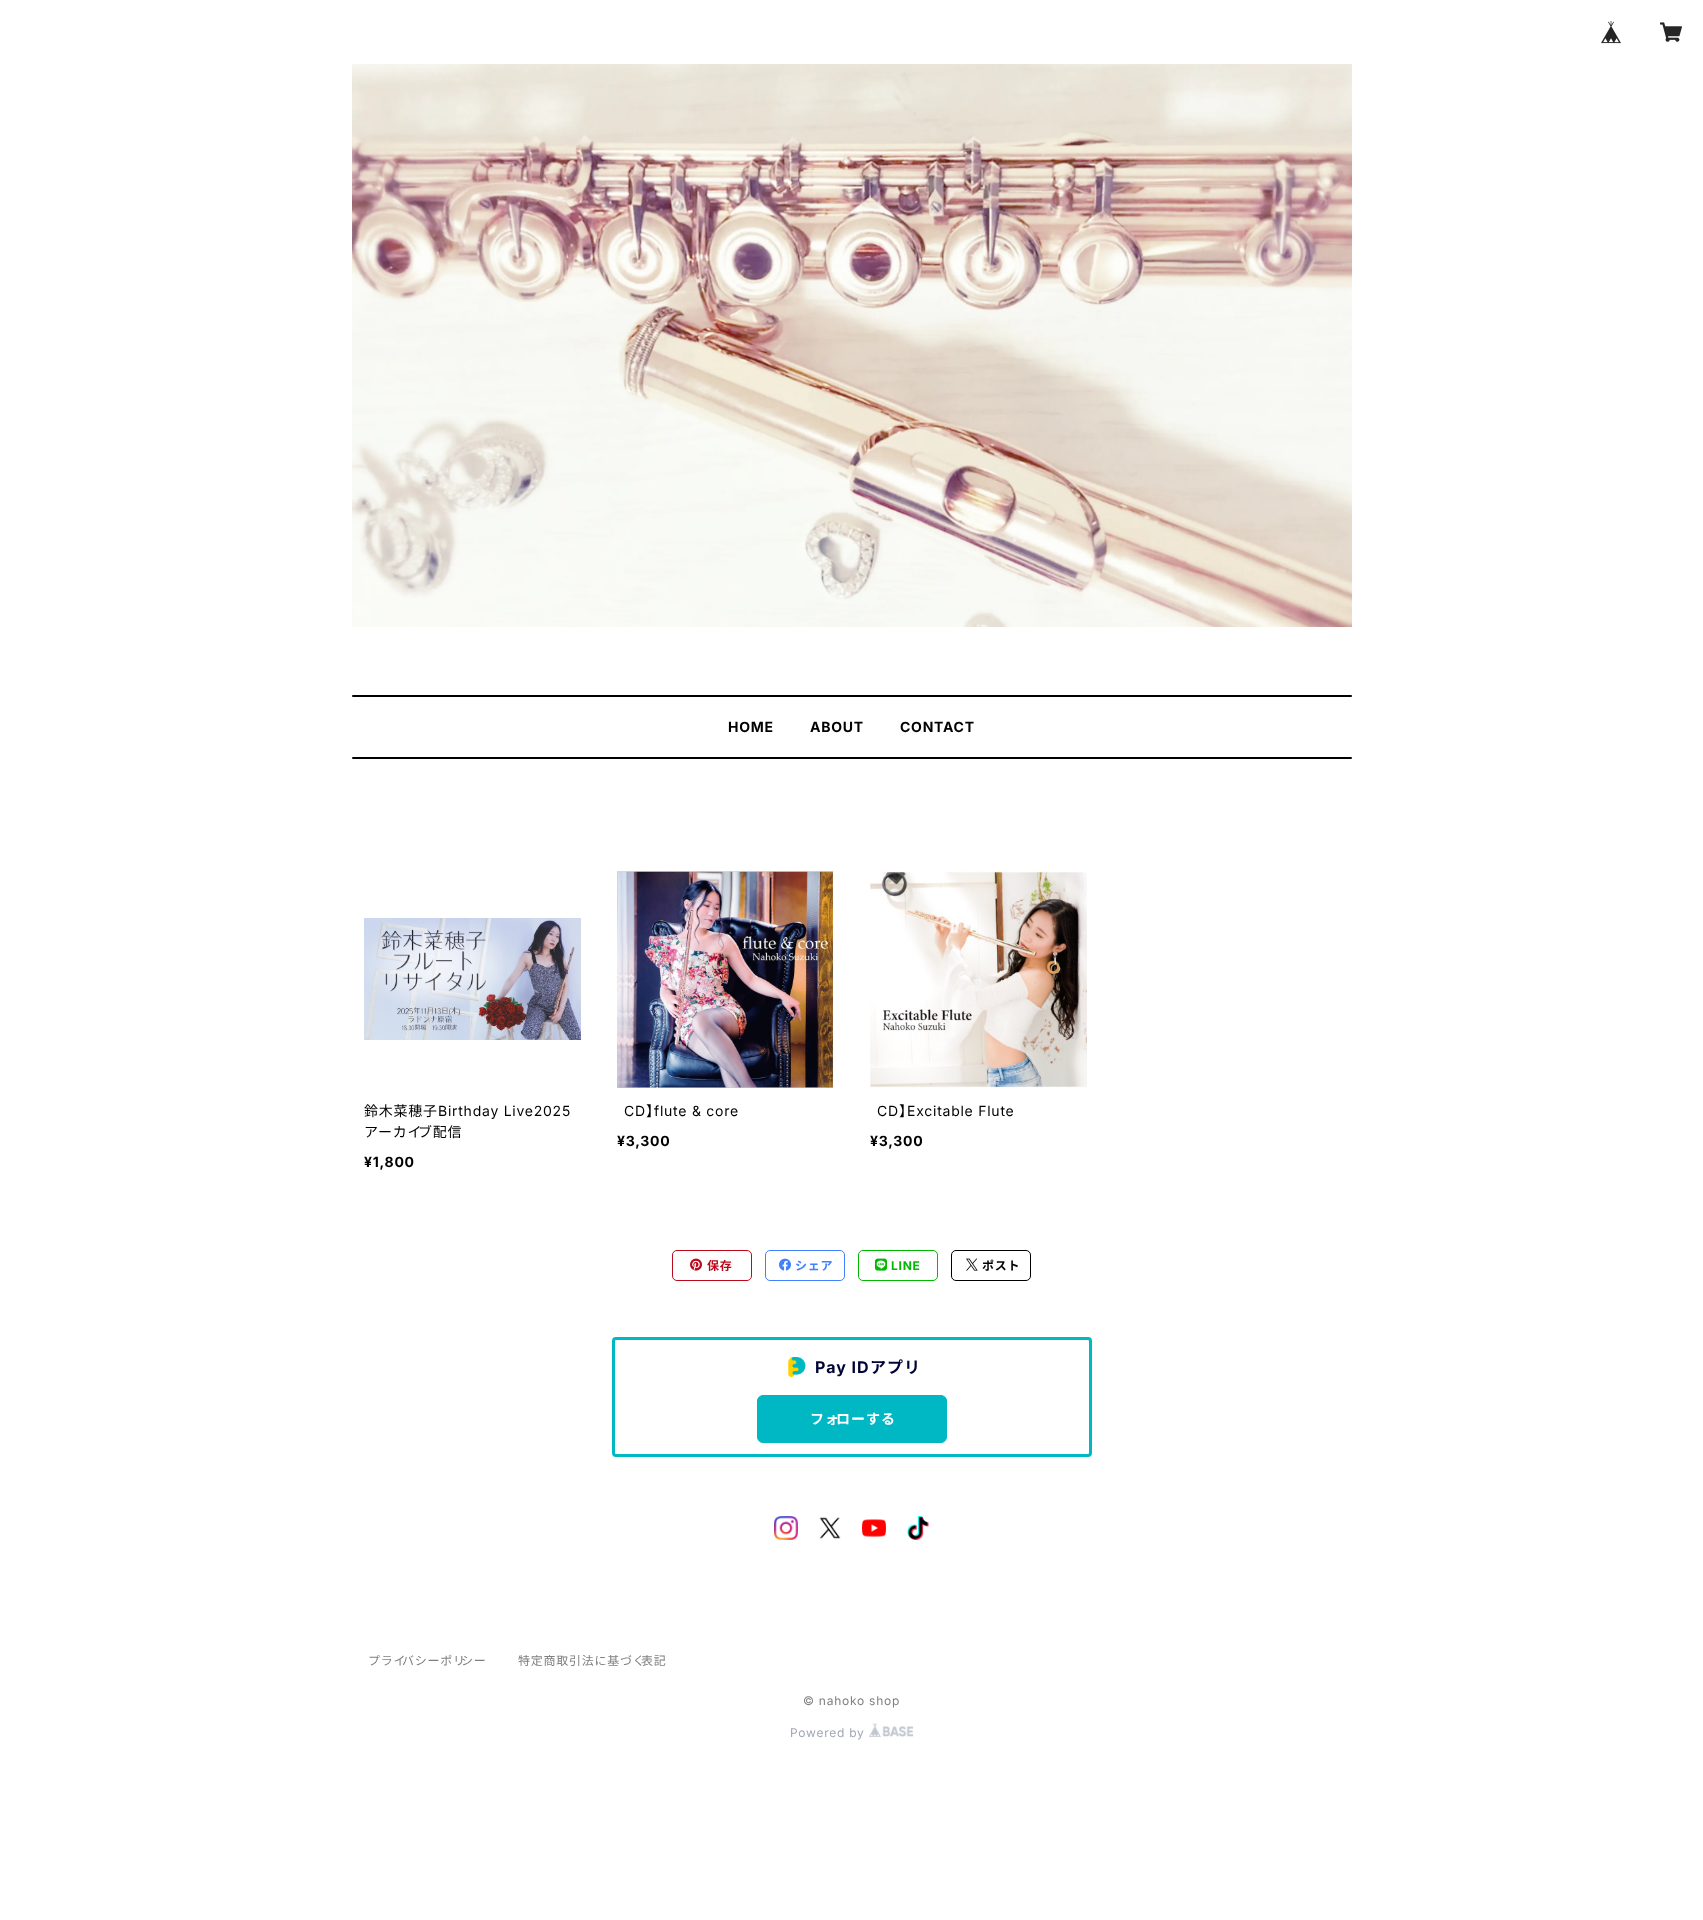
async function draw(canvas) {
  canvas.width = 1703;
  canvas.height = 1920;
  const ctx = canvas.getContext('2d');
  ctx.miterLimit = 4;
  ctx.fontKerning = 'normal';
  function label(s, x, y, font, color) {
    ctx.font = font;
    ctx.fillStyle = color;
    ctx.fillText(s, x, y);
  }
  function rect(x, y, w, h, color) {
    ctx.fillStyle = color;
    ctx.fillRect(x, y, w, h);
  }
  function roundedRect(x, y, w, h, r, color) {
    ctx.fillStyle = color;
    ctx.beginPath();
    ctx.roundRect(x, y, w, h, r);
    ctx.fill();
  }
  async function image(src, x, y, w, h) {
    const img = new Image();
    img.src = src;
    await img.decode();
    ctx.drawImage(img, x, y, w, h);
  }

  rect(0, 0, 1703, 1920, '#fff');
  await image('assets/img1.png', 1601, 21, 20, 23);
  await image('assets/img2.png', 1660, 22, 22, 20);
  await image('assets/img3.png', 352, 64, 1000, 563);
  roundedRect(352, 695, 1000, 2, 1, '#000');
  ctx.letterSpacing = '0.75px';
  label('HOME', 728, 732, 'bold 14px Inter', '#000');
  label('ABOUT', 810, 732, 'bold 14px Inter', '#000');
  label('CONTACT', 900, 732, 'bold 14px Inter', '#000');
  roundedRect(352, 757, 1000, 2, 1, '#000');
  await image('assets/img4.png', 364, 918, 217, 122);
  label('鈴木菜穂子', 364, 1116, '14px Noto Sans JP', '#000');
  label('Birthday Live2025', 438, 1116, '14px Inter', '#000');
  label('アーカイ', 364, 1137, '14px Noto Sans JP', '#000');
  label('ブ配信', 418, 1137, '14px Noto Sans JP', '#000');
  label('¥1,800', 364, 1167, 'bold 14px Inter', '#000');
  await image('assets/img5.png', 617, 871, 216, 217);
  label('CD', 624, 1116, '14px Inter', '#000');
  label('】', 646, 1116, '14px Noto Sans JP', '#000');
  label('flute & core', 654, 1116, '14px Inter', '#000');
  label('¥3,300', 617, 1146, 'bold 14px Inter', '#000');
  await image('assets/img6.png', 870, 871, 217, 217);
  label('CD', 877, 1116, '14px Inter', '#000');
  label('】', 899, 1116, '14px Noto Sans JP', '#000');
  label('Excitable Flute', 907, 1116, '14px Inter', '#000');
  label('¥3,300', 870, 1146, 'bold 14px Inter', '#000');
  ctx.beginPath();
  ctx.roundRect(672.5, 1250.5, 79, 30, 4.5);
  ctx.strokeStyle = '#bd091c';
  ctx.stroke();
  await image('assets/img7.png', 690, 1258, 12, 13);
  label('保存', 707, 1270, 'bold 12px Noto Sans JP', '#bd091c');
  ctx.beginPath();
  ctx.roundRect(765.5, 1250.5, 79, 30, 4.5);
  ctx.strokeStyle = '#4081ff';
  ctx.stroke();
  await image('assets/img8.png', 779, 1258, 12, 13);
  label('シェア', 795, 1270, 'bold 12px Noto Sans JP', '#4081ff');
  ctx.beginPath();
  ctx.roundRect(858.5, 1250.5, 79, 30, 4.5);
  ctx.strokeStyle = '#00b901';
  ctx.stroke();
  await image('assets/img9.png', 875, 1258, 12, 13);
  label('LINE', 891, 1270, 'bold 12px Inter', '#00b901');
  ctx.beginPath();
  ctx.roundRect(951.5, 1250.5, 79, 30, 4.5);
  ctx.strokeStyle = '#000';
  ctx.stroke();
  await image('assets/img10.png', 966, 1258, 12, 13);
  label('ポスト', 982, 1270, 'bold 12px Noto Sans JP', '#000');
  ctx.beginPath();
  ctx.roundRect(613.5, 1338.5, 477, 117, 2.5);
  ctx.strokeStyle = '#00b8c3';
  ctx.lineWidth = 3;
  ctx.stroke();
  await image('assets/img11.png', 788, 1357, 18, 20);
  ctx.letterSpacing = '1px';
  label('Pay ID', 815, 1373, 'bold 16px Inter', '#000435');
  label('アプリ', 870, 1373, 'bold 16px Noto Sans JP', '#000435');
  ctx.fillStyle = '#00b8c3';
  ctx.beginPath();
  ctx.roundRect(757.5, 1395.5, 189, 47, 5.5);
  ctx.fill();
  ctx.lineWidth = 1;
  ctx.stroke();
  label('フォ', 810, 1424, 'bold 14px Noto Sans JP', '#fff');
  label('ローする', 836, 1424, 'bold 14px Noto Sans JP', '#fff');
  await image('assets/img12.png', 774, 1516, 24, 24);
  await image('assets/img13.png', 819, 1517, 22, 22);
  await image('assets/img14.png', 862, 1519, 24, 18);
  await image('assets/img15.png', 907, 1516, 23, 24);
  ctx.letterSpacing = '0.75px';
  label('プライ', 368, 1665, '12px Noto Sans JP', '#808080');
  label('バシーポリ', 402, 1665, '12px Noto Sans JP', '#808080');
  label('シー', 461, 1665, '12px Noto Sans JP', '#808080');
  label('特定商取引法に基づく', 518, 1665, '12px Noto Sans JP', '#808080');
  label('表記', 641, 1665, '12px Noto Sans JP', '#808080');
  label('© nahoko shop', 803, 1705, '12px Inter', '#808080');
  label('Powered by', 790, 1737, '12px Inter', '#a0a7b4');
  await image('assets/img16.png', 869, 1723, 44, 14);
}

draw(document.querySelector('canvas'));
